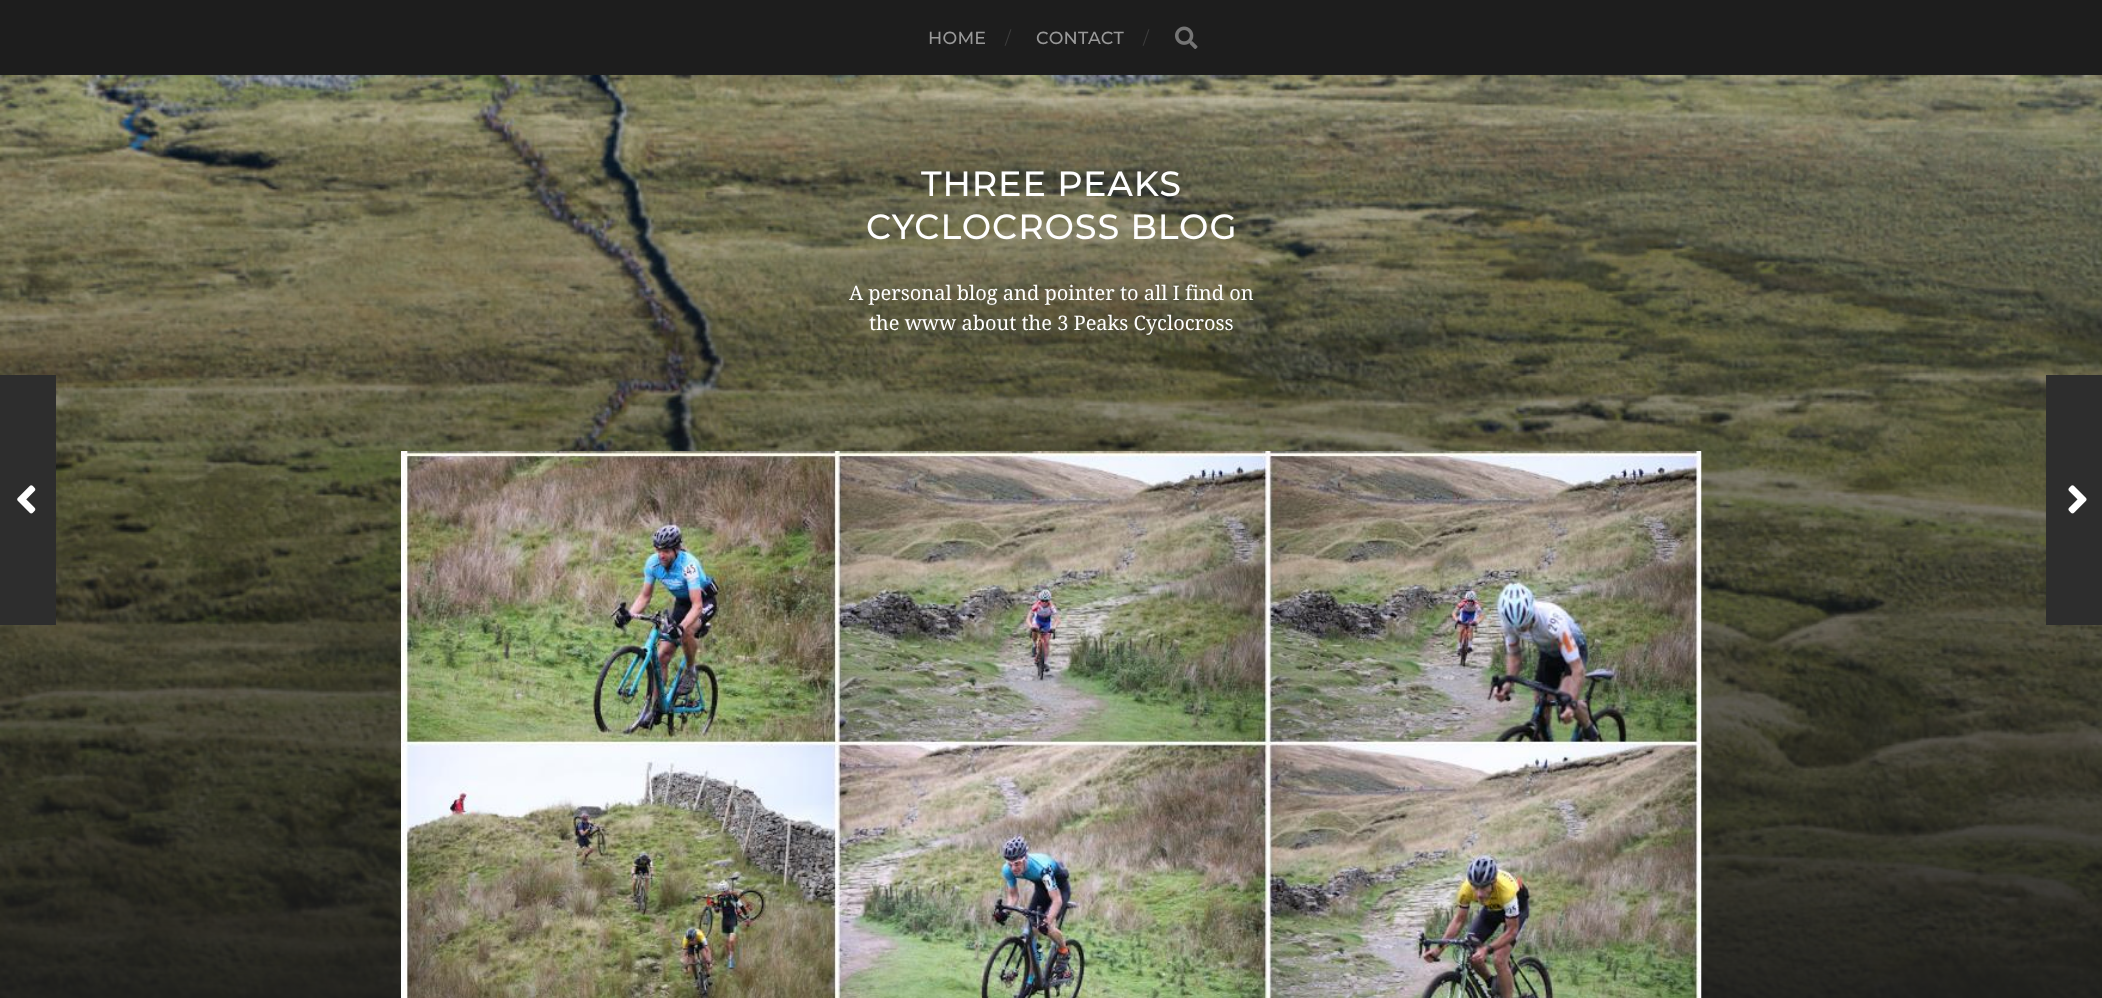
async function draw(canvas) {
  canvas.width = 2102;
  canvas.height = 998;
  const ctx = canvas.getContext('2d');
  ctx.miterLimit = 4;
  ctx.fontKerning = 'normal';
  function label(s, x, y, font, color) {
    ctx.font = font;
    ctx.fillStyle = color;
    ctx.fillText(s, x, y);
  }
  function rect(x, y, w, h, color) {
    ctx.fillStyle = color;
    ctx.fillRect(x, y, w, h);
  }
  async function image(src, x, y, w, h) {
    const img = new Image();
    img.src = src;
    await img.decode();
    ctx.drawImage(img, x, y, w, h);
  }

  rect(0, 0, 2102, 998, '#1d1d1d');
  ctx.letterSpacing = '0.25px';
  label('HOME', 928, 44, '100 17.5px Montserrat', '#999');
  ctx.letterSpacing = '0px';
  label('/', 1005, 44, '100 17.5px "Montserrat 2"', '#3d3d3d');
  ctx.letterSpacing = '0.25px';
  label('CONTACT', 1036, 44, '100 17.5px Montserrat', '#999');
  ctx.letterSpacing = '0px';
  label('/', 1143, 44, '100 17.5px "Montserrat 2"', '#3d3d3d');
  await image('assets/img1.png', 1175, 26, 23, 23);
  await image('assets/img2.png', 0, 75, 2102, 923);
  ctx.letterSpacing = '0.9px';
  label('THREE PEAKS', 921, 196, '100 35px Montserrat', '#fff');
  label('CYCLOCROSS BLOG', 866, 239, '100 35px Montserrat', '#fff');
  ctx.letterSpacing = '0px';
  label('A personal blog and pointer to all I find on', 849, 300, '20px Droid Serif', '#fff');
  label('the www about the 3 Peaks Cyclocross', 869, 330, '20px Droid Serif', '#fff');
  rect(401, 451, 1300, 547, '#fff');
  rect(0, 375, 56, 250, '#2d2d2d');
  await image('assets/img3.png', 17, 485, 19, 29);
  rect(2046, 375, 56, 250, '#2d2d2d');
  await image('assets/img4.png', 2068, 485, 19, 29);
  await image('assets/img5.png', 401, 451, 1301, 547);
}

draw(document.querySelector('canvas'));
